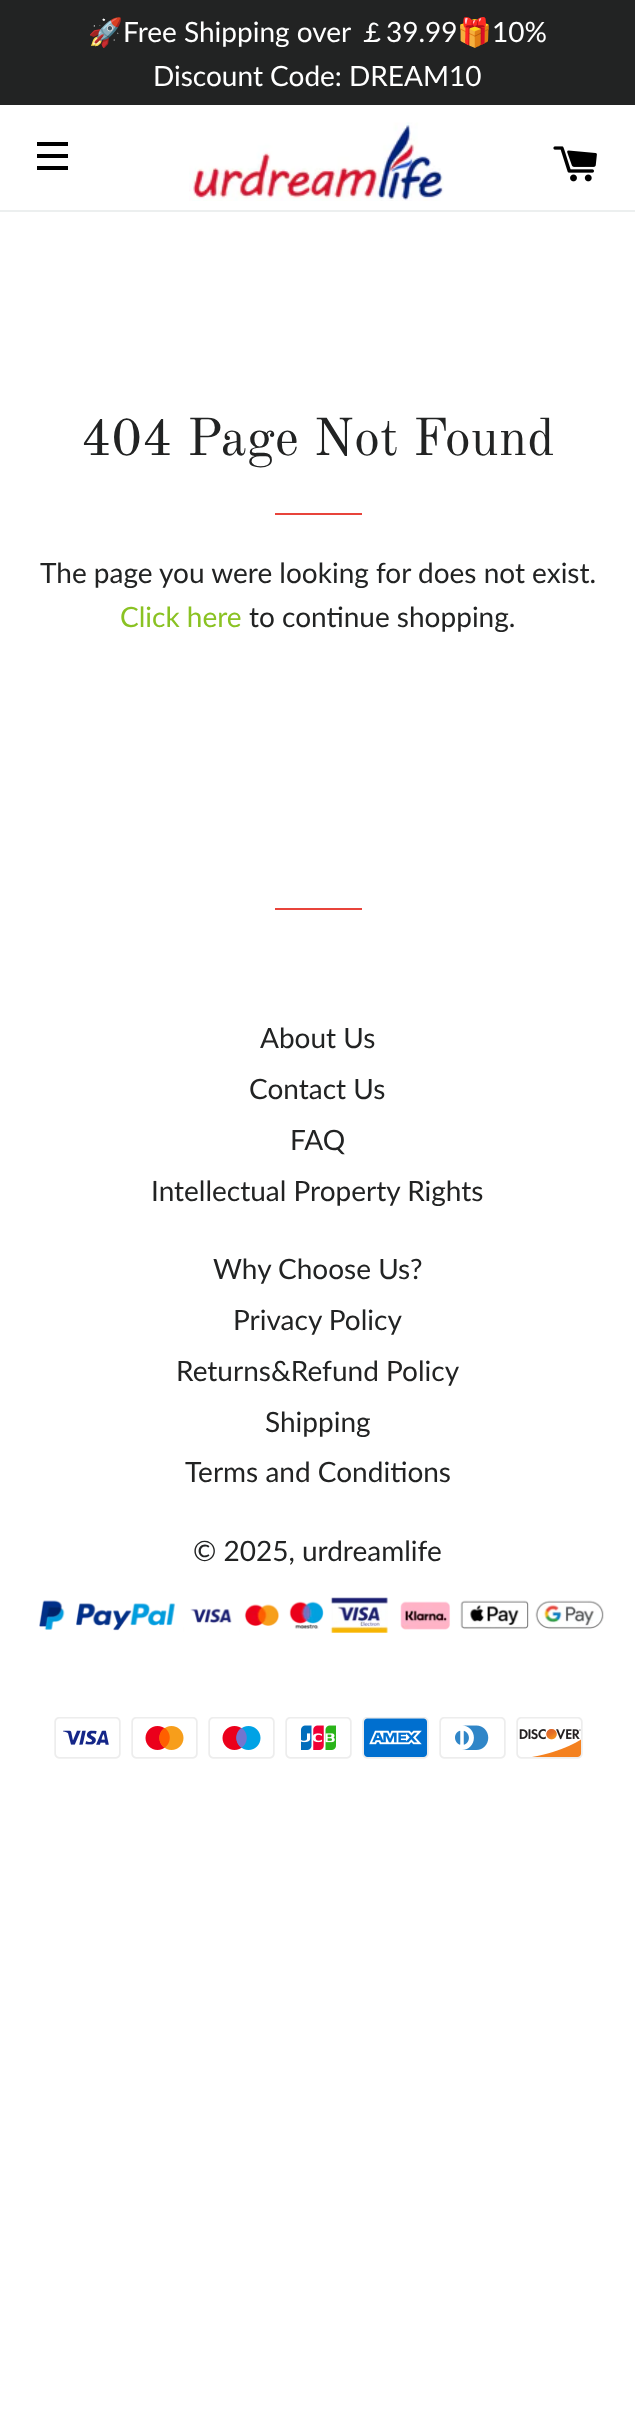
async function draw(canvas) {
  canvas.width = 635;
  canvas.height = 2434;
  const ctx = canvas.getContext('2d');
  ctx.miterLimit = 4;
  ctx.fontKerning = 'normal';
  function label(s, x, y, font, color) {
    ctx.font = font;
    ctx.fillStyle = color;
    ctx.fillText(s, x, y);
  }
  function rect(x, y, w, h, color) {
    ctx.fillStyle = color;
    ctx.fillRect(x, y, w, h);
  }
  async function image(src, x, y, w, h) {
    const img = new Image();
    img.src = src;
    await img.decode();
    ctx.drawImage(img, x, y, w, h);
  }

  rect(0, 0, 635, 2434, '#fff');
  rect(0, 0, 635, 105, '#222323');
  label('🚀', 88, 42, '28px Noto Color Emoji', '#fff');
  label('Free Shipping over', 123, 42, '28px Lato', '#fff');
  label('￡', 358, 42, '500 28px WenQuanYi Zen Hei', '#fff');
  label('39.99', 386, 42, '28px Lato', '#fff');
  label('🎁', 457, 42, '28px Noto Color Emoji', '#fff');
  label('10%', 492, 42, '28px Lato', '#fff');
  label('Discount Code: DREAM10', 153, 86, '28px Lato', '#fff');
  rect(37, 142, 31, 4, '#000');
  rect(37, 154, 31, 4, '#000');
  rect(37, 166, 31, 4, '#000');
  await image('assets/img1.png', 189, 122, 255, 79);
  await image('assets/img2.png', 553, 146, 44, 36);
  rect(0, 210, 635, 2, '#ecefef');
  label('404 Page Not Found', 81, 455, '52.5px Old Standard TT', '#222323');
  rect(275, 513, 87, 2, '#e8443b');
  label('The page you were looking for does not exist.', 40, 583, '28px Lato', '#222323');
  label('Click here', 120, 627, '28px Lato', '#8ac223');
  label('to continue shopping.', 249, 627, '28px Lato', '#222323');
  rect(275, 908, 87, 2, '#e8443b');
  label('About Us', 260, 1048, '28px Lato', '#222323');
  label('Contact Us', 249, 1099, '28px Lato', '#222323');
  label('FAQ', 290, 1150, '28px Lato', '#222323');
  label('Intellectual Property Rights', 151, 1201, '28px Lato', '#222323');
  label('Why Choose Us?', 213, 1279, '28px Lato', '#222323');
  label('Privacy Policy', 233, 1330, '28px Lato', '#222323');
  label('Returns&Refund Policy', 176, 1381, '28px Lato', '#222323');
  label('Shipping', 265, 1432, '28px Lato', '#222323');
  label('Terms and Conditions', 185, 1482, '28px Lato', '#222323');
  label('© 2025, urdreamlife', 193, 1561, '28px Lato', '#222323');
  await image('assets/img3.png', 39, 1597, 565, 36);
  await image('assets/img4.png', 54, 1717, 67, 42);
  await image('assets/img5.png', 131, 1717, 67, 42);
  await image('assets/img6.png', 208, 1717, 67, 42);
  await image('assets/img7.png', 285, 1717, 67, 42);
  await image('assets/img8.png', 362, 1717, 67, 42);
  await image('assets/img9.png', 439, 1717, 67, 42);
  await image('assets/img10.png', 516, 1717, 67, 42);
}

draw(document.querySelector('canvas'));
